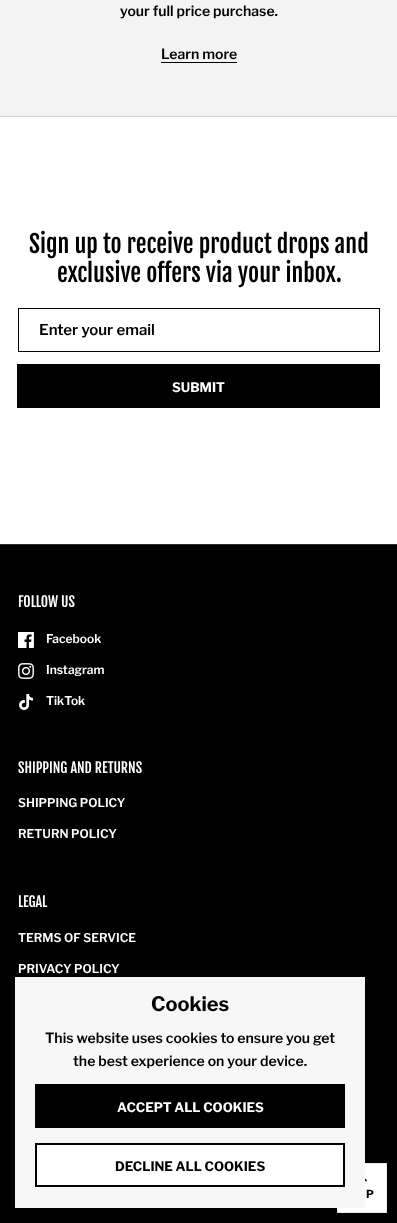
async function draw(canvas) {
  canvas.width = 397;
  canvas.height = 1223;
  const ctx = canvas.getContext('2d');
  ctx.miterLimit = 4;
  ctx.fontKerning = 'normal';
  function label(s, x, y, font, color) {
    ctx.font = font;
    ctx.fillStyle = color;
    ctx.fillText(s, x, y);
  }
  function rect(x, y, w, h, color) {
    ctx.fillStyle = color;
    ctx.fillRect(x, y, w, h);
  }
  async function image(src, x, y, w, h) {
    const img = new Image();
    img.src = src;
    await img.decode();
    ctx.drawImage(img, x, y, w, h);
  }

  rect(0, 0, 397, 1223, '#fff');
  rect(0, 0, 397, 116, '#f3f3f3');
  label('your full price purchase.', 120, 16, '600 14px Libre Franklin', '#000');
  label('Learn more', 161, 59, '600 14px Libre Franklin', '#000');
  rect(161, 62, 76, 1, '#000');
  rect(0, 116, 397, 1, '#d1d1d1');
  label('Sign up to receive product drops and', 29, 253, '24px Fjalla One', '#000');
  label('exclusive offers via your inbox.', 57, 282, '24px Fjalla One', '#000');
  ctx.strokeStyle = '#000';
  ctx.strokeRect(18.5, 308.5, 361, 43);
  label('Enter your email', 39, 335, '600 15px Libre Franklin', '#000');
  rect(17, 364, 363, 44, '#000');
  label('SUBMIT', 172, 392, 'bold 13px Libre Franklin', '#fff');
  rect(0, 545, 397, 678, '#000');
  rect(0, 544, 397, 1, '#2e2e2e');
  label('FOLLOW US', 18, 607, '14px Fjalla One', '#fff');
  await image('assets/img1.png', 18, 632, 16, 16);
  label('Facebook', 46, 643, '600 12px Libre Franklin', '#fff');
  await image('assets/img2.png', 18, 663, 16, 16);
  label('Instagram', 46, 674, '600 12px Libre Franklin', '#fff');
  await image('assets/img3.png', 19, 694, 14, 16);
  label('TikTok', 46, 705, '600 12px Libre Franklin', '#fff');
  label('SHIPPING AND RETURNS', 18, 773, '14px Fjalla One', '#fff');
  label('SHIPPING POLICY', 18, 807, '600 12px Libre Franklin', '#fff');
  label('RETURN POLICY', 18, 838, '600 12px Libre Franklin', '#fff');
  label('LEGAL', 18, 907, '14px Fjalla One', '#fff');
  label('TERMS OF SERVICE', 18, 942, '600 12px Libre Franklin', '#fff');
  label('PRIVACY POLICY', 18, 973, '600 12px Libre Franklin', '#fff');
  ctx.beginPath();
  ctx.rect(337.5, 1163.5, 49, 49);
  ctx.fill();
  ctx.strokeStyle = '#ebebeb';
  ctx.stroke();
  rect(15, 977, 350, 231, '#f7f7f7');
  label('Cookies', 151, 1011, 'bold 20px Libre Franklin', '#000');
  label('This website uses cookies to ensure you get', 45, 1043, '600 14px Libre Franklin', '#000');
  label('the best experience on your device.', 73, 1066, '600 14px Libre Franklin', '#000');
  rect(35, 1084, 310, 44, '#000');
  label('ACCEPT ALL COOKIES', 117, 1112, 'bold 13px Libre Franklin', '#fff');
  ctx.beginPath();
  ctx.rect(36, 1144, 308, 42);
  ctx.fill();
  ctx.strokeStyle = '#000';
  ctx.lineWidth = 2;
  ctx.stroke();
  label('DECLINE ALL COOKIES', 115, 1171, 'bold 13px Libre Franklin', '#000');
  await image('assets/img4.png', 365, 1178, 2, 4);
  label('P', 366, 1198, 'bold 11px Libre Franklin', '#000');
}

draw(document.querySelector('canvas'));
